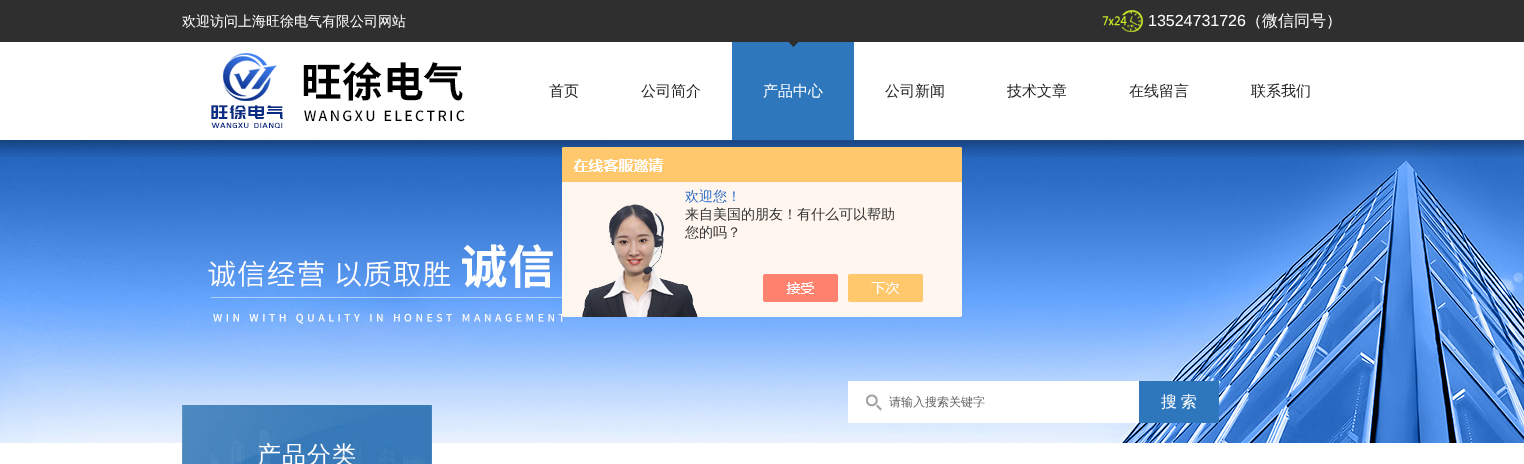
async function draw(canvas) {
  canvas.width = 1524;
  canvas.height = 464;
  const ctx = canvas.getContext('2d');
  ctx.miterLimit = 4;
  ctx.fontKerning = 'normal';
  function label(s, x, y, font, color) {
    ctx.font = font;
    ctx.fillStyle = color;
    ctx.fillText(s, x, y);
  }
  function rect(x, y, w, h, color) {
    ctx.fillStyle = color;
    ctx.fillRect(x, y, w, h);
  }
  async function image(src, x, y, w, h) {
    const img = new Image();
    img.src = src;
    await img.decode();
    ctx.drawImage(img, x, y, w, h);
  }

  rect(0, 0, 1524, 464, '#fff');
  rect(0, 0, 1524, 42, '#2f2f2f');
  label('欢迎访问上海旺徐电气有限公司网站', 182, 26, '500 14px WenQuanYi Zen Hei', '#fff');
  await image('assets/img1.png', 1102, 10, 41, 22);
  label('13524731726', 1148, 26, '16px Liberation Sans', '#fff');
  label('（微信同号）', 1246, 26, '500 16px WenQuanYi Zen Hei', '#fff');
  await image('assets/img6.png', 0, 140, 1524, 303);
  await image('assets/img2.png', 0, 140, 1524, 17);
  await image('assets/img3.png', 211, 53, 254, 75);
  label('首页', 549, 96, '500 15px WenQuanYi Zen Hei', '#222322');
  label('公司简介', 641, 96, '500 15px WenQuanYi Zen Hei', '#222322');
  rect(732, 42, 122, 98, '#2f77bd');
  await image('assets/img4.png', 789, 42, 9, 5);
  label('产品中心', 763, 96, '500 15px WenQuanYi Zen Hei', '#fff');
  label('公司新闻', 885, 96, '500 15px WenQuanYi Zen Hei', '#222322');
  label('技术文章', 1007, 96, '500 15px WenQuanYi Zen Hei', '#222322');
  label('在线留言', 1129, 96, '500 15px WenQuanYi Zen Hei', '#222322');
  label('联系我们', 1251, 96, '500 15px WenQuanYi Zen Hei', '#222322');
  await image('assets/img5.png', 562, 147, 400, 170);
  label('欢迎您！', 685, 201, '500 14px WenQuanYi Zen Hei', '#2e6ec6');
  label('来自美国的朋友！有什么可以帮助', 685, 219, '500 14px WenQuanYi Zen Hei', '#333');
  label('您的吗？', 685, 237, '500 14px WenQuanYi Zen Hei', '#333');
  rect(848, 381, 291, 42, '#fff');
  await image('assets/img7.png', 866, 392, 16, 20);
  label('请输入搜索关键字', 889, 406, '500 12px WenQuanYi Zen Hei', '#666');
  rect(1139, 381, 80, 42, '#2f77bd');
  ctx.wordSpacing = '-1px';
  label('搜 索', 1161, 407, '500 16px WenQuanYi Zen Hei', '#fff');
  await image('assets/img8.png', 182, 405, 250, 59);
  ctx.letterSpacing = '1px';
  ctx.wordSpacing = '0px';
  label('产品分类', 257, 463, '500 24px WenQuanYi Zen Hei', '#fff');
}

draw(document.querySelector('canvas'));
